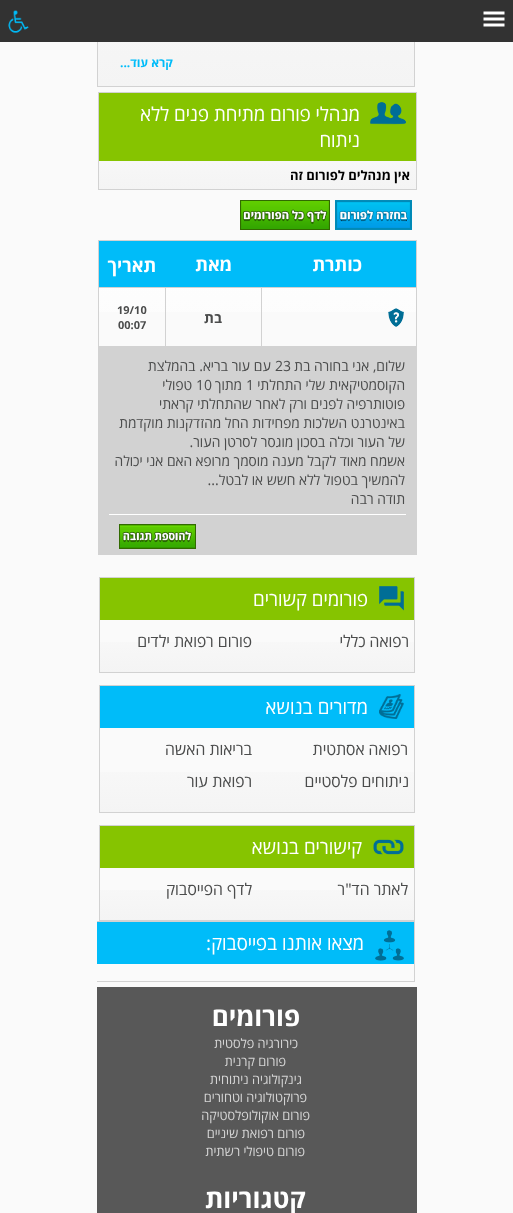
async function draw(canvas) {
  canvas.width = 513;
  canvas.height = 1213;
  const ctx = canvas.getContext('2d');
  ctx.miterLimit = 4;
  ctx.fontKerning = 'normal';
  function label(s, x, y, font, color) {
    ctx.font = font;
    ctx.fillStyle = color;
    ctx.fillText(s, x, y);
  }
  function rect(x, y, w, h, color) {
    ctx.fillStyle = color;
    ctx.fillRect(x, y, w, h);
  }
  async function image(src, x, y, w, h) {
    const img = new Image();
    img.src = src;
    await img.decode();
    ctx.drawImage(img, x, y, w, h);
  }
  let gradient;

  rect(0, 0, 513, 1213, '#fafafa');
  gradient = ctx.createLinearGradient(256, -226, 256, 86);
  gradient.addColorStop(0, '#fff');
  gradient.addColorStop(1, '#f4f4f4');
  ctx.fillStyle = gradient;
  ctx.fillRect(98, 42, 316, 44);
  ctx.strokeStyle = '#d2d2d2';
  ctx.strokeRect(97.5, -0.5, 317, 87);
  rect(0, 0, 513, 42, '#323232');
  await image('assets/img1.png', 483, 11, 22, 16);
  await image('assets/img2.png', 8, 10, 21, 23);
  ctx.direction = 'rtl';
  label('קרא עוד...', 173, 67, 'bold 12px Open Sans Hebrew', '#00bcf9');
  gradient = ctx.createLinearGradient(258, 93, 258, 189);
  gradient.addColorStop(0, '#fff');
  gradient.addColorStop(1, '#f4f4f4');
  ctx.fillStyle = gradient;
  ctx.fillRect(99, 161, 317, 28);
  ctx.strokeRect(98.5, 92.5, 318, 97);
  rect(99, 93, 317, 68, '#86c400');
  await image('assets/img3.png', 370, 102, 36, 23);
  label('מנהלי פורום מתיחת פנים ללא', 360, 121, '19px Open Sans Hebrew', '#fff');
  label('ניתוח', 360, 147, '19px Open Sans Hebrew', '#fff');
  label('אין מנהלים לפורום זה', 410, 180, 'bold 13px Open Sans Hebrew', '#000');
  await image('assets/img4.png', 335, 200, 77, 30);
  await image('assets/img5.png', 240, 200, 90, 30);
  ctx.strokeRect(98.5, 240.5, 318, 314);
  gradient = ctx.createLinearGradient(258, 241, 258, 554);
  gradient.addColorStop(0, '#fff');
  gradient.addColorStop(1, '#f4f4f4');
  ctx.fillStyle = gradient;
  ctx.fillRect(99, 288, 317, 24);
  rect(99, 241, 317, 46, '#00bcf9');
  label('כותרת', 362, 271, 'bold 18px Open Sans Hebrew', '#fff');
  label('מאת', 232, 271, 'bold 18px Open Sans Hebrew', '#fff');
  label('תאריך', 156, 272, 'bold 18px Open Sans Hebrew', '#fff');
  rect(99, 287, 317, 1, '#d2d2d2');
  rect(261, 287, 1, 59, '#d2d2d2');
  await image('assets/img6.png', 388, 308, 16, 19);
  rect(165, 287, 1, 59, '#d2d2d2');
  label('בת', 222, 323, 'bold 14px Open Sans Hebrew', '#4b4c4c');
  ctx.direction = 'ltr';
  label('19/10', 117, 314, 'bold 11px Open Sans Hebrew', '#4b4c4c');
  label('00:07', 118, 329, 'bold 11px Open Sans Hebrew', '#4b4c4c');
  rect(99, 346, 317, 208, '#d2d2d2');
  ctx.direction = 'rtl';
  label('שלום, אני בחורה בת', 405, 371, '14px Open Sans Hebrew', '#4b4c4c');
  ctx.direction = 'ltr';
  label('23', 275, 371, '14px Open Sans Hebrew', '#4b4c4c');
  ctx.direction = 'rtl';
  label('עם עור בריא. בהמלצת', 271, 371, '14px Open Sans Hebrew', '#4b4c4c');
  label('הקוסמטיקאית שלי התחלתי', 405, 390, '14px Open Sans Hebrew', '#4b4c4c');
  ctx.direction = 'ltr';
  label('1', 246, 390, '14px Open Sans Hebrew', '#4b4c4c');
  ctx.direction = 'rtl';
  label('מתוך', 242, 390, '14px Open Sans Hebrew', '#4b4c4c');
  ctx.direction = 'ltr';
  label('10', 196, 390, '14px Open Sans Hebrew', '#4b4c4c');
  ctx.direction = 'rtl';
  label('טפולי', 192, 390, '14px Open Sans Hebrew', '#4b4c4c');
  label('פוטותרפיה לפנים ורק לאחר שהתחלתי קראתי', 405, 409, '14px Open Sans Hebrew', '#4b4c4c');
  label('באינטרנט השלכות מפחידות החל מהזדקנות מוקדמת', 405, 428, '14px Open Sans Hebrew', '#4b4c4c');
  label('של העור וכלה בסכון מוגסר לסרטן העור.', 405, 447, '14px Open Sans Hebrew', '#4b4c4c');
  label('אשמח מאוד לקבל מענה מוסמך מרופא האם אני יכולה', 405, 466, '14px Open Sans Hebrew', '#4b4c4c');
  label('להמשיך בטפול ללא חשש או לבטל...', 405, 485, '14px Open Sans Hebrew', '#4b4c4c');
  label('תודה רבה', 405, 504, '14px Open Sans Hebrew', '#4b4c4c');
  rect(108, 514, 298, 1, '#fff');
  rect(108, 514, 1, 1, '#d2d2d2');
  await image('assets/img7.png', 119, 524, 77, 25);
  gradient = ctx.createLinearGradient(257, 578, 257, 672);
  gradient.addColorStop(0, '#fff');
  gradient.addColorStop(1, '#f4f4f4');
  ctx.fillStyle = gradient;
  ctx.fillRect(100, 642, 314, 30);
  ctx.strokeRect(99.5, 577.5, 315, 95);
  rect(100, 578, 314, 42, '#86c400');
  await image('assets/img8.png', 379, 586, 25, 25);
  label('פורומים קשורים', 368, 606, '19px Open Sans Hebrew', '#fff');
  label('רפואה כללי', 409, 647, '16px Open Sans Hebrew', '#4b4c4c');
  label('פורום רפואת ילדים', 252, 647, '16px Open Sans Hebrew', '#4b4c4c');
  gradient = ctx.createLinearGradient(257, 686, 257, 812);
  gradient.addColorStop(0, '#fff');
  gradient.addColorStop(1, '#f4f4f4');
  ctx.fillStyle = gradient;
  ctx.fillRect(100, 772, 314, 40);
  ctx.strokeRect(99.5, 685.5, 315, 127);
  rect(100, 686, 314, 42, '#00bcf9');
  await image('assets/img9.png', 379, 694, 25, 25);
  label('מדורים בנושא', 368, 714, '19px Open Sans Hebrew', '#fff');
  label('רפואה אסתטית', 408, 755, '16px Open Sans Hebrew', '#4b4c4c');
  label('בריאות האשה', 252, 755, '16px Open Sans Hebrew', '#4b4c4c');
  label('ניתוחים פלסטיים', 409, 787, '16px Open Sans Hebrew', '#4b4c4c');
  label('רפואת עור', 252, 787, '16px Open Sans Hebrew', '#4b4c4c');
  gradient = ctx.createLinearGradient(257, 826, 257, 920);
  gradient.addColorStop(0, '#fff');
  gradient.addColorStop(1, '#f4f4f4');
  ctx.fillStyle = gradient;
  ctx.fillRect(100, 890, 314, 30);
  ctx.strokeRect(99.5, 825.5, 315, 95);
  rect(100, 826, 314, 42, '#86c400');
  await image('assets/img10.png', 373, 839, 31, 16);
  label('קישורים בנושא', 362, 854, '19px Open Sans Hebrew', '#fff');
  label('לאתר הד"ר', 408, 895, '16px Open Sans Hebrew', '#4b4c4c');
  label('לדף הפייסבוק', 252, 895, '16px Open Sans Hebrew', '#4b4c4c');
  ctx.save();
  ctx.beginPath();
  ctx.rect(97, 0, 320, 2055);
  ctx.clip();
  ctx.strokeRect(93.5, 921.5, 321, 60);
  ctx.restore();
  rect(97, 922, 317, 42, '#00bcf9');
  await image('assets/img11.png', 375, 930, 29, 31);
  label('מצאו אותנו בפייסבוק:', 364, 950, '19px Open Sans Hebrew', '#fff');
  rect(97, 987, 320, 226, '#585858');
  label('פורומים', 300, 1026, 'bold 26px Open Sans Hebrew', '#fff');
  label('כירורגיה פלסטית', 298, 1048, '13px Open Sans Hebrew', '#d5d5d5');
  label('פורום קרנית', 286, 1066, '13px Open Sans Hebrew', '#d5d5d5');
  label('גינקולוגיה ניתוחית', 302, 1084, '13px Open Sans Hebrew', '#d5d5d5');
  label('פרוקטולוגיה וטחורים', 307, 1102, '13px Open Sans Hebrew', '#d5d5d5');
  label('פורום אוקולופלסטיקה', 310, 1120, '13px Open Sans Hebrew', '#d5d5d5');
  label('פורום רפואת שיניים', 305, 1138, '13px Open Sans Hebrew', '#d5d5d5');
  label('פורום טיפולי רשתית', 305, 1156, '13px Open Sans Hebrew', '#d5d5d5');
  label('קטגוריות', 306, 1208, 'bold 26px Open Sans Hebrew', '#fff');
}

draw(document.querySelector('canvas'));
